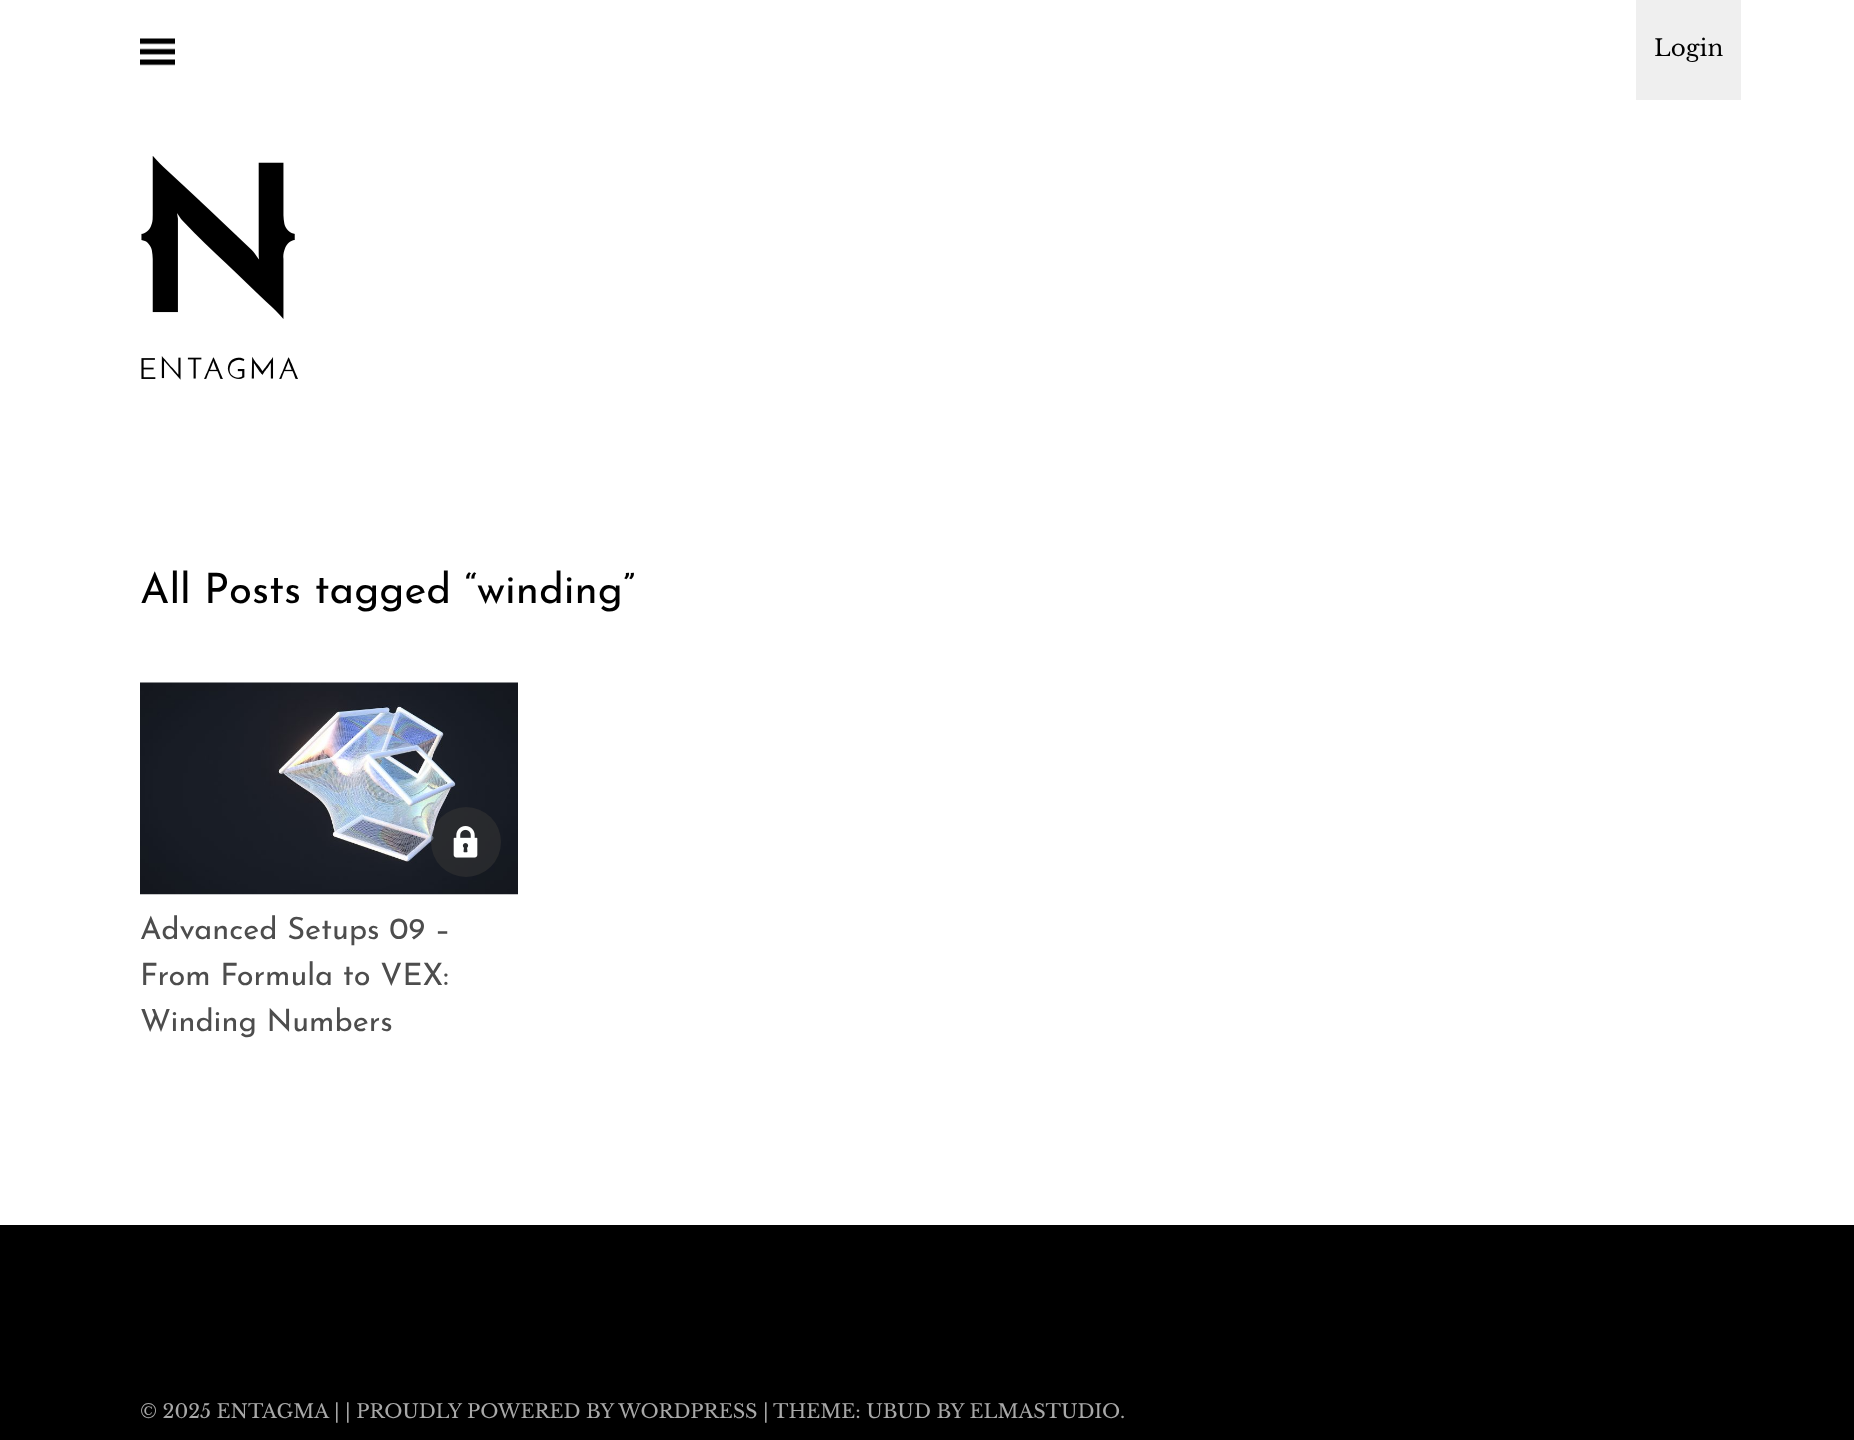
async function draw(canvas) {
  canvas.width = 1854;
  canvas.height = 1440;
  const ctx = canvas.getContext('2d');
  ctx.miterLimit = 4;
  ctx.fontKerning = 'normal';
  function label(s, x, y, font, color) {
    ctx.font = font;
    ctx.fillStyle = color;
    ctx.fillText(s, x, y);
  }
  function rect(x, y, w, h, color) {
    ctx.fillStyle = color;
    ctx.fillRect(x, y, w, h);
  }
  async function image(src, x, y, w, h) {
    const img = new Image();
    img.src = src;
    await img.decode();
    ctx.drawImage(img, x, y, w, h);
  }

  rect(0, 0, 1854, 1440, '#fff');
  await image('assets/img1.png', 140, 38, 35, 28);
  rect(1636, 0, 105, 100, '#efefef');
  label('Login', 1654, 56, '23px Libre Baskerville', '#000');
  await image('assets/img2.png', 141, 156, 157, 224);
  label('All Posts tagged “winding”', 140, 603, '42px Josefin Sans', '#000');
  await image('assets/img3.png', 140, 682, 378, 213);
  ctx.fillStyle = '#33333399';
  ctx.beginPath();
  ctx.arc(466, 842, 35, 0, 2 * Math.PI);
  ctx.fill();
  await image('assets/img4.png', 453, 826, 25, 32);
  label('Advanced Setups 09 –', 140, 939, '30.75px Josefin Sans', '#4d4d4d');
  label('From Formula to VEX:', 140, 985, '30.75px Josefin Sans', '#4d4d4d');
  label('Winding Numbers', 140, 1031, '30.75px Josefin Sans', '#4d4d4d');
  rect(0, 1225, 1854, 215, '#000');
  label('© 2025 ENTAGMA', 140, 1418, '19.25px Libre Baskerville', '#a8a8a8');
  label('| | PROUDLY POWERED BY WORDPRESS |', 334, 1418, '19.25px Libre Baskerville', '#a8a8a8');
  label('THEME: UBUD BY ELMASTUDIO', 773, 1418, '19.25px Libre Baskerville', '#a8a8a8');
  label('.', 1120, 1418, '19.25px Libre Baskerville', '#a8a8a8');
}

draw(document.querySelector('canvas'));
